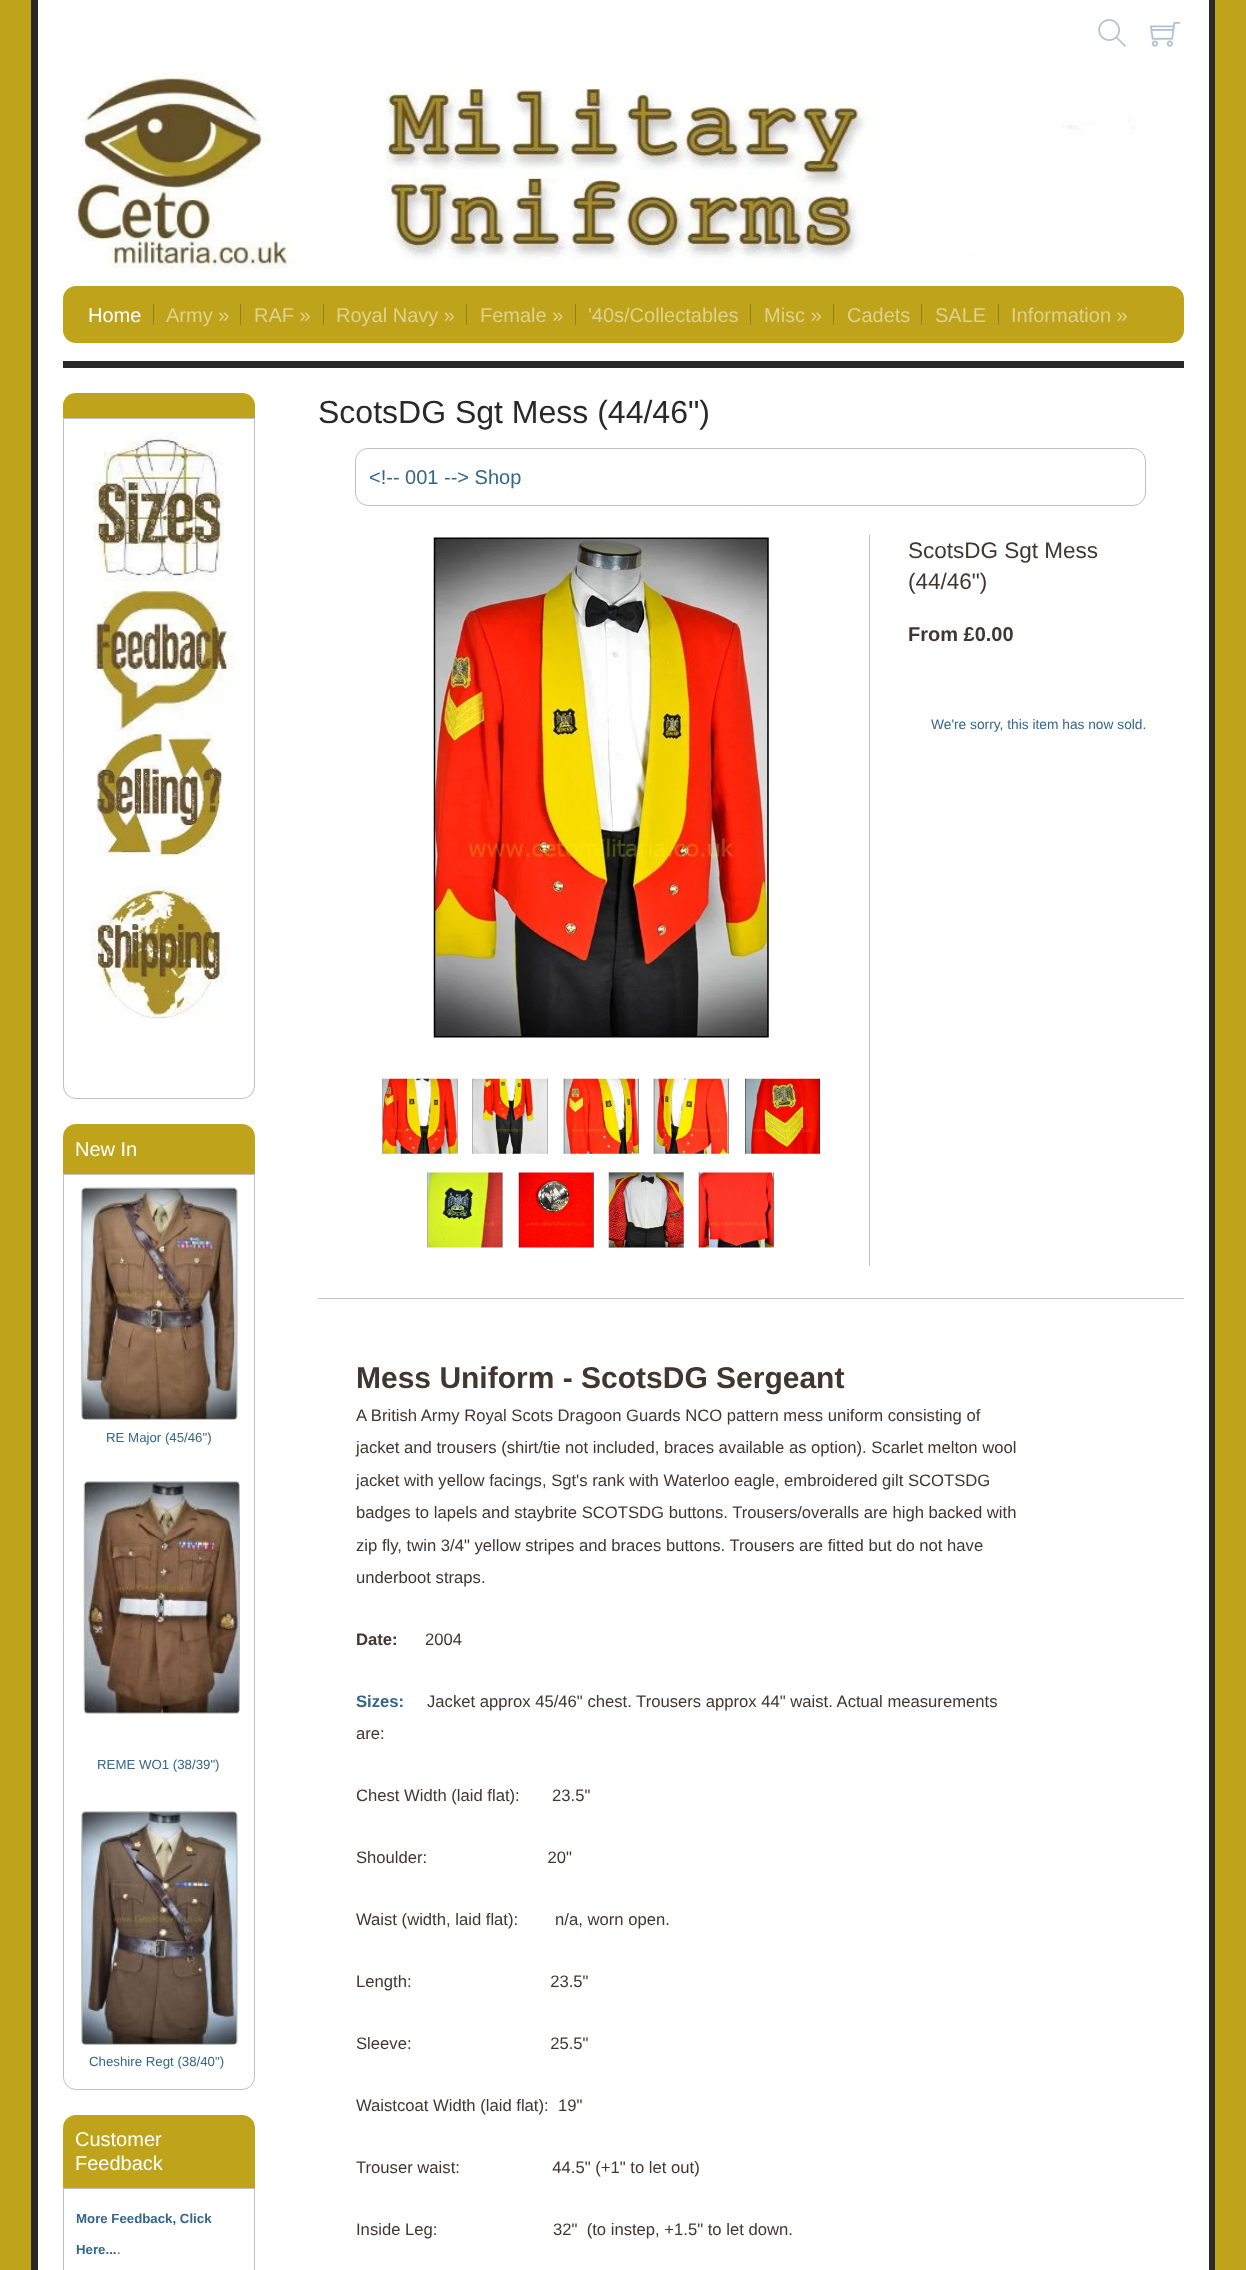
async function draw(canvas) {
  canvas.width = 1246;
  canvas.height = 2270;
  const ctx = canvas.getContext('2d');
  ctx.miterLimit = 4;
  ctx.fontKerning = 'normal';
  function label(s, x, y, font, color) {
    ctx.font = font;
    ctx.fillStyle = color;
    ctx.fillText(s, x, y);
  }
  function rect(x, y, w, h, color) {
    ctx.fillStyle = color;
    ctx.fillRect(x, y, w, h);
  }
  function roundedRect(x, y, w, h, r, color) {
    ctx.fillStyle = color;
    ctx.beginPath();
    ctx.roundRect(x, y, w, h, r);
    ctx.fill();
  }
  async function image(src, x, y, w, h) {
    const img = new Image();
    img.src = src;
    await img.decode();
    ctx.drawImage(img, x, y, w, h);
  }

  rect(0, 0, 1246, 2270, '#bfa41b');
  rect(38, 0, 1171, 2270, '#fff');
  rect(1209, 0, 6, 2270, '#292929');
  rect(31, 0, 7, 2270, '#292929');
  await image('assets/img1.png', 72, 72, 1063, 201);
  await image('assets/img2.png', 1098, 19, 28, 28);
  await image('assets/img3.png', 1150, 21, 30, 26);
  roundedRect(63, 286, 1121, 57, 13, '#bfa41b');
  label('Home', 88, 322, '20px Liberation Sans', '#fff');
  rect(153, 304, 1, 21, '#927f1f');
  label('Army »', 166, 322, '20px Liberation Sans', '#dfd28d');
  rect(240, 304, 1, 21, '#927f1f');
  label('RAF »', 254, 322, '20px Liberation Sans', '#dfd28d');
  rect(323, 304, 1, 21, '#927f1f');
  label('Royal Navy »', 336, 322, '20px Liberation Sans', '#dfd28d');
  rect(466, 304, 1, 21, '#927f1f');
  label('Female »', 480, 322, '20px Liberation Sans', '#dfd28d');
  rect(575, 304, 1, 21, '#927f1f');
  label('\'40s/Collectables', 588, 322, '20px Liberation Sans', '#dfd28d');
  rect(750, 304, 1, 21, '#927f1f');
  label('Misc »', 764, 322, '20px Liberation Sans', '#dfd28d');
  rect(833, 304, 1, 21, '#927f1f');
  label('Cadets', 847, 322, '20px Liberation Sans', '#dfd28d');
  rect(921, 304, 1, 21, '#927f1f');
  label('SALE', 935, 322, '20px Liberation Sans', '#dfd28d');
  rect(998, 304, 1, 21, '#927f1f');
  label('Information »', 1011, 322, '20px Liberation Sans', '#dfd28d');
  rect(63, 361, 1121, 7, '#292929');
  ctx.fillStyle = '#bfa41b';
  ctx.beginPath();
  ctx.roundRect(63, 393, 192, 25, [12.5, 12.5, 0, 0]);
  ctx.fill();
  ctx.beginPath();
  ctx.roundRect(63.5, 418.5, 191, 680, [0, 0, 12.5, 12.5]);
  ctx.strokeStyle = '#bfbfbf';
  ctx.stroke();
  await image('assets/img4.png', 93, 432, 131, 149);
  await image('assets/img5.png', 93, 581, 141, 151);
  await image('assets/img6.png', 96, 731, 126, 126);
  await image('assets/img7.png', 90, 886, 137, 133);
  ctx.beginPath();
  ctx.roundRect(63, 1124, 192, 50, [13, 13, 0, 0]);
  ctx.fill();
  label('New In', 75, 1156, '20px Liberation Sans', '#fff');
  ctx.beginPath();
  ctx.roundRect(63.5, 1174.5, 191, 915, [0, 0, 12.5, 12.5]);
  ctx.stroke();
  await image('assets/img8.png', 81, 1187, 157, 233);
  label('RE Major (45/46")', 106, 1442, '13.25px Liberation Sans', '#34658a');
  await image('assets/img9.png', 83, 1481, 157, 233);
  label('REME WO1 (38/39")', 97, 1769, '13.25px Liberation Sans', '#34658a');
  await image('assets/img10.png', 81, 1811, 157, 234);
  label('Cheshire Regt (38/40")', 89, 2066, '13.25px Liberation Sans', '#34658a');
  ctx.fillStyle = '#bfa41b';
  ctx.beginPath();
  ctx.roundRect(63, 2115, 192, 73, [13, 13, 0, 0]);
  ctx.fill();
  label('Customer', 75, 2146, '20px Liberation Sans', '#fff');
  label('Feedback', 75, 2170, '20px Liberation Sans', '#fff');
  ctx.strokeRect(63.5, 2188.5, 191, 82);
  label('More Feedback, Click', 76, 2223, 'bold 13.25px Liberation Sans', '#34658a');
  label('Here...', 76, 2254, 'bold 13.25px Liberation Sans', '#34658a');
  label('.', 117, 2254, '13.25px Liberation Sans', '#34658a');
  label('ScotsDG Sgt Mess (44/46")', 318, 423, '32px Liberation Sans', '#292929');
  ctx.beginPath();
  ctx.roundRect(355.5, 448.5, 790, 57, 12.5);
  ctx.stroke();
  label('<\!-- 001 --> Shop', 369, 484, '20px Liberation Sans', '#34658a');
  rect(869, 535, 1, 731, '#bfbfbf');
  await image('assets/img11.png', 433, 537, 336, 501);
  await image('assets/img12.png', 382, 1078, 76, 76);
  await image('assets/img13.png', 472, 1078, 76, 76);
  await image('assets/img14.png', 563, 1078, 76, 76);
  await image('assets/img15.png', 653, 1078, 76, 76);
  await image('assets/img16.png', 745, 1078, 75, 76);
  await image('assets/img17.png', 427, 1172, 76, 76);
  await image('assets/img18.png', 518, 1172, 76, 76);
  await image('assets/img19.png', 608, 1172, 76, 76);
  await image('assets/img20.png', 698, 1172, 76, 76);
  label('ScotsDG Sgt Mess', 908, 558, '22.5px Liberation Sans', '#423630');
  label('(44/46")', 908, 589, '22.5px Liberation Sans', '#423630');
  label('From £0.00', 908, 641, 'bold 20px Liberation Sans', '#423630');
  label('We\'re sorry, this item has now sold.', 931, 729, '13.75px Liberation Sans', '#34658a');
  rect(318, 1298, 866, 1, '#bfbfbf');
  label('Mess Uniform - ScotsDG Sergeant', 356, 1388, 'bold 30px Liberation Sans', '#423630');
  label('A British Army Royal Scots Dragoon Guards NCO pattern mess uniform consisting of', 356, 1421, '16.65px Liberation Sans', '#423630');
  label('jacket and trousers (shirt/tie not included, braces available as option). Scarlet melton wool', 356, 1453, '16.65px Liberation Sans', '#423630');
  label('jacket with yellow facings, Sgt\'s rank with Waterloo eagle, embroidered gilt SCOTSDG', 356, 1486, '16.65px Liberation Sans', '#423630');
  label('badges to lapels and staybrite SCOTSDG buttons. Trousers/overalls are high backed with', 356, 1518, '16.65px Liberation Sans', '#423630');
  label('zip fly, twin 3/4" yellow stripes and braces buttons. Trousers are fitted but do not have', 356, 1551, '16.65px Liberation Sans', '#423630');
  label('underboot straps.', 356, 1583, '16.65px Liberation Sans', '#423630');
  label('Date:', 356, 1645, 'bold 16.65px Liberation Sans', '#423630');
  label('2004', 425, 1645, '16.65px Liberation Sans', '#423630');
  label('Sizes:', 356, 1707, 'bold 16.65px Liberation Sans', '#34658a');
  label('Jacket approx 45/46" chest. Trousers approx 44" waist. Actual measurements', 427, 1707, '16.65px Liberation Sans', '#423630');
  label('are:', 356, 1739, '16.65px Liberation Sans', '#423630');
  label('Chest Width (laid flat):       23.5"', 356, 1801, '16.65px Liberation Sans', '#423630');
  label('Shoulder:                          20"', 356, 1863, '16.65px Liberation Sans', '#423630');
  label('Waist (width, laid flat):        n/a, worn open.', 356, 1925, '16.65px Liberation Sans', '#423630');
  label('Length:                              23.5"', 356, 1987, '16.65px Liberation Sans', '#423630');
  label('Sleeve:                              25.5"', 356, 2049, '16.65px Liberation Sans', '#423630');
  label('Waistcoat Width (laid flat):  19"', 356, 2111, '16.65px Liberation Sans', '#423630');
  label('Trouser waist:                    44.5" (+1" to let out)', 356, 2173, '16.65px Liberation Sans', '#423630');
  label('Inside Leg:                         32"  (to instep, +1.5" to let down.', 356, 2235, '16.65px Liberation Sans', '#423630');
}

draw(document.querySelector('canvas'));
